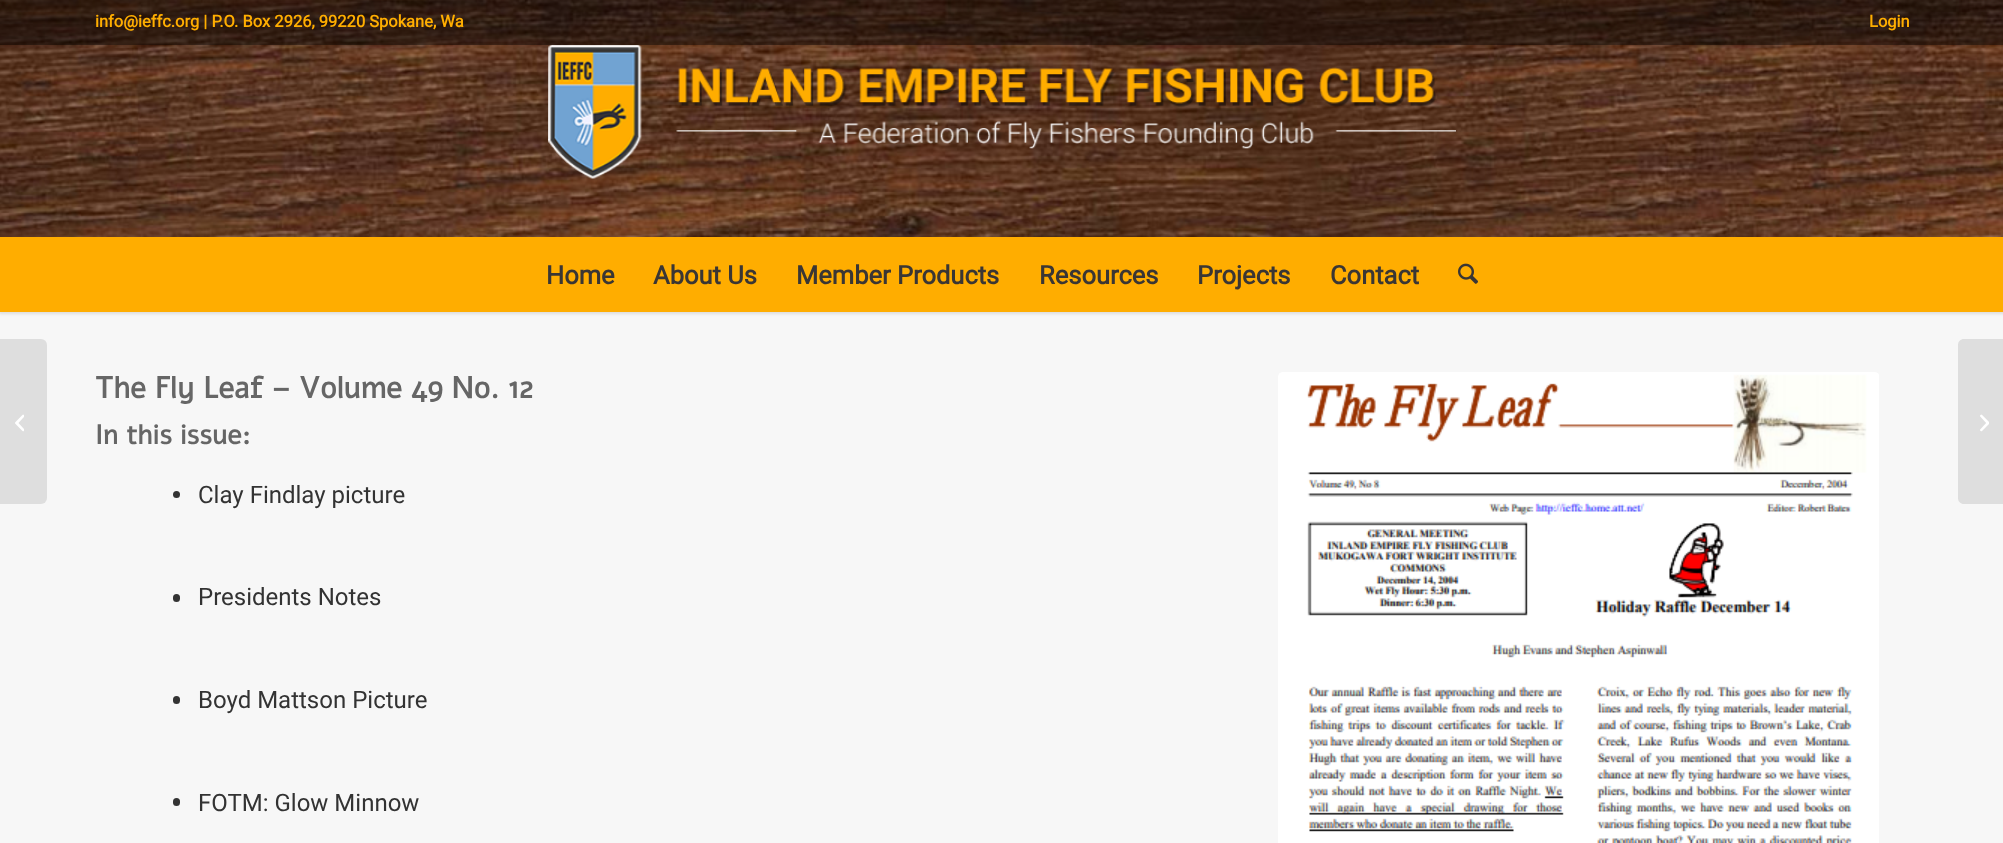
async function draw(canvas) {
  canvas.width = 2003;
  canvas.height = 843;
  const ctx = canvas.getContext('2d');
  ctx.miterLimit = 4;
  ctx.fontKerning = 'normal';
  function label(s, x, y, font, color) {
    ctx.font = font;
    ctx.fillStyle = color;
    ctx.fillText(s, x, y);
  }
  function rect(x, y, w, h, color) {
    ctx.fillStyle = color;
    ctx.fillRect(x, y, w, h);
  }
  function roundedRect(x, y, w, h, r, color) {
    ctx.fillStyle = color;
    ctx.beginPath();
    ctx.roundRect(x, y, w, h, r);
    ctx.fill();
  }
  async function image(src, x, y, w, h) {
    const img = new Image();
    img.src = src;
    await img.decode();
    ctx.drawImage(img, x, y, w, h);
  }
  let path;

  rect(0, 0, 2003, 843, '#f7f7f7');
  ctx.fillStyle = '#0000001a';
  ctx.filter = 'blur(1.5px)';
  ctx.beginPath();
  ctx.rect(-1, -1, 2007, 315);
  ctx.fill();
  ctx.filter = 'none';
  await image('assets/img1.png', 0, 0, 2003, 237);
  rect(0, 0, 2003, 45, '#0000006b');
  label('info@ieffc.org | P.O. Box 2926, 99220 Spokane, Wa', 95, 27, 'bold 16.5px Roboto', '#ffae00');
  label('Login', 1869, 27, 'bold 16.5px Roboto', '#ffae00');
  await image('assets/img2.png', 548, 45, 908, 134);
  rect(0, 237, 2003, 75, '#ffad00');
  label('Home', 546, 284, 'bold 25.5px Roboto', '#3a3634');
  label('About Us', 653, 284, 'bold 25.5px Roboto', '#3a3634');
  label('Member Products', 796, 284, 'bold 25.5px Roboto', '#3a3634');
  label('Resources', 1039, 284, 'bold 25.5px Roboto', '#3a3634');
  label('Projects', 1197, 284, 'bold 25.5px Roboto', '#3a3634');
  label('Contact', 1330, 284, 'bold 25.5px Roboto', '#3a3634');
  await image('assets/img3.png', 1458, 263, 20, 21);
  ctx.fillStyle = '#dedede';
  ctx.beginPath();
  ctx.roundRect(0, 339, 47, 165, [0, 6, 6, 0]);
  ctx.fill();
  await image('assets/img4.png', 15, 414, 9, 18);
  label('The Fly Leaf – Volume 49 No. 12', 95, 398, 'bold 30px Alef', '#666');
  label('In this issue:', 95, 444, 'bold 27px Alef', '#666');
  ctx.fillStyle = '#333';
  ctx.beginPath();
  ctx.arc(176.5, 494.5, 3.5, 0, 2 * Math.PI);
  ctx.fill();
  label('Clay Findlay picture', 198, 503, '24px Roboto', '#333');
  roundedRect(173, 594, 7, 8, 3.5, '#333');
  label('Presidents Notes', 198, 605, '24px Roboto', '#333');
  roundedRect(173, 696, 7, 8, 3.5, '#333');
  label('Boyd Mattson Picture', 198, 708, '24px Roboto', '#333');
  roundedRect(173, 798, 7, 8, 3.5, '#333');
  label('FOTM: Glow Minnow', 198, 811, '24px Roboto', '#333');
  await image('assets/img5.png', 1278, 372, 601, 471);
  ctx.fillStyle = '#dedede';
  path = new Path2D('M1964 339H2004V504H1964C1960.5 504 1958 501.5 1958 498V345C1958 341.5 1960.5 339 1964 339Z');
  ctx.fill(path);
  await image('assets/img6.png', 1980, 414, 9, 18);
}

draw(document.querySelector('canvas'));
